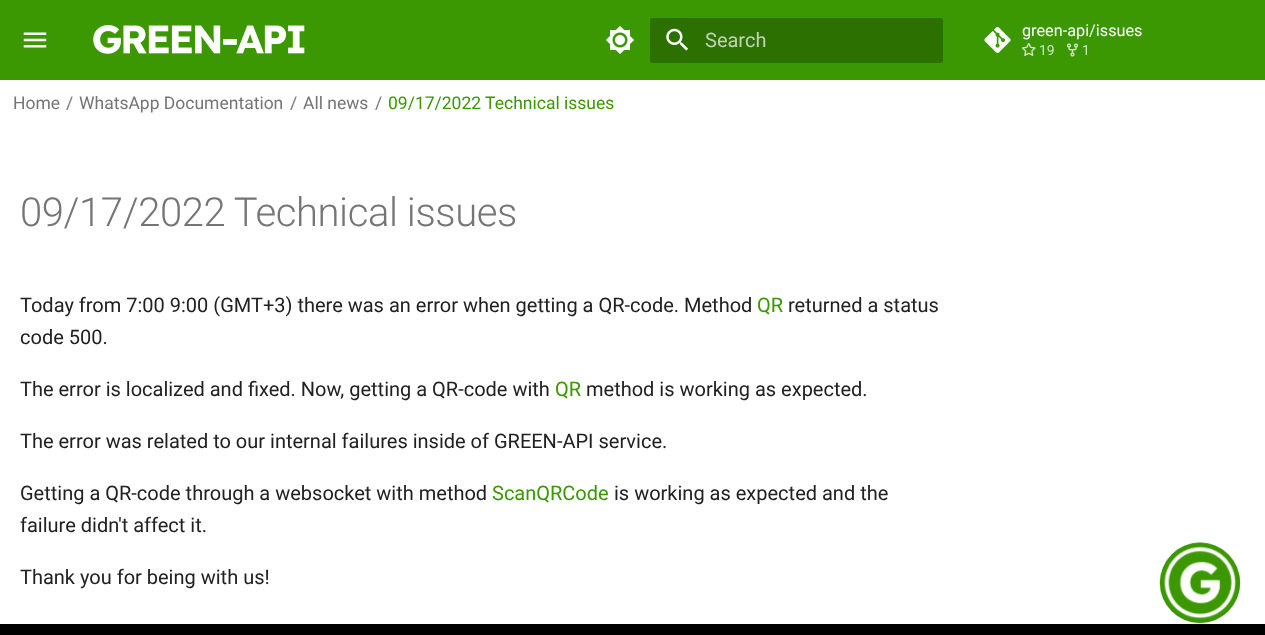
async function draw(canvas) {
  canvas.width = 1265;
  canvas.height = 635;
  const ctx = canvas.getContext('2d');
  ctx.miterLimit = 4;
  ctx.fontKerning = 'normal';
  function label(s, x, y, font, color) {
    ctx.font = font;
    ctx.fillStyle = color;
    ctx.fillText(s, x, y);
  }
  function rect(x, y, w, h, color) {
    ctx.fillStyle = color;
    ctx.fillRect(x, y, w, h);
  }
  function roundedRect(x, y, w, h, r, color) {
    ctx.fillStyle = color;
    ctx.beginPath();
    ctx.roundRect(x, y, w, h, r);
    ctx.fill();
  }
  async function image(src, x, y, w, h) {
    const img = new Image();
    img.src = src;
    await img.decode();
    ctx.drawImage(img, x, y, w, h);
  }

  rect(0, 0, 1265, 635, '#fff');
  rect(0, 0, 1265, 80, '#3b9702');
  await image('assets/img1.png', 23, 32, 24, 16);
  await image('assets/img2.png', 93, 25, 212, 29);
  await image('assets/img3.png', 606, 26, 28, 28);
  roundedRect(650, 18, 293, 45, 2.5, '#2c7001');
  await image('assets/img4.png', 666, 28, 22, 23);
  label('Search', 705, 47, '20px Roboto', '#c0d4b3');
  await image('assets/img5.png', 984, 26, 27, 28);
  label('green-api/issues', 1022, 36, '16.25px Roboto', '#fff');
  await image('assets/img6.png', 1021, 43, 15, 13);
  label('19', 1039, 55, '14px Roboto', '#cee5c0');
  await image('assets/img7.png', 1066, 43, 13, 14);
  label('1', 1082, 55, '14px Roboto', '#cee5c0');
  label('Home', 13, 109, '17.5px Roboto', '#757575');
  label('/', 66, 109, '17.5px Roboto', '#757575');
  label('WhatsApp Documentation', 79, 109, '17.5px Roboto', '#757575');
  label('/', 290, 109, '17.5px Roboto', '#757575');
  label('All news', 303, 109, '17.5px Roboto', '#757575');
  label('/', 375, 109, '17.5px Roboto', '#757575');
  label('09/17/2022 Technical issues', 388, 109, '17.5px Roboto', '#3b9702');
  ctx.letterSpacing = '-0.4px';
  label('09/17/2022 Technical issues', 20, 226, '300 40px Roboto', '#757575');
  ctx.letterSpacing = '0px';
  label('Today from 7:00 9:00 (GMT+3) there was an error when getting a QR-code. Method', 20, 312, '20px Roboto', '#212121');
  label('QR', 757, 312, '20px Roboto', '#3b9702');
  label('returned a status', 788, 312, '20px Roboto', '#212121');
  label('code 500.', 20, 344, '20px Roboto', '#212121');
  label('The error is localized and fixed. Now, getting a QR-code with', 20, 396, '20px Roboto', '#212121');
  label('QR', 555, 396, '20px Roboto', '#3b9702');
  label('method is working as expected.', 586, 396, '20px Roboto', '#212121');
  label('The error was related to our internal failures inside of GREEN-API service.', 20, 448, '20px Roboto', '#212121');
  label('Getting a QR-code through a websocket with method', 20, 500, '20px Roboto', '#212121');
  label('ScanQRCode', 492, 500, '20px Roboto', '#3b9702');
  label('is working as expected and the', 614, 500, '20px Roboto', '#212121');
  label('failure didn\'t affect it.', 20, 532, '20px Roboto', '#212121');
  label('Thank you for being with us!', 20, 584, '20px Roboto', '#212121');
  rect(0, 624, 1265, 11, '#000');
  ctx.fillStyle = '#3b9702';
  ctx.beginPath();
  ctx.arc(1200, 583, 40, 0, 2 * Math.PI);
  ctx.fill();
  await image('assets/img8.png', 1159, 542, 82, 82);
}

draw(document.querySelector('canvas'));
